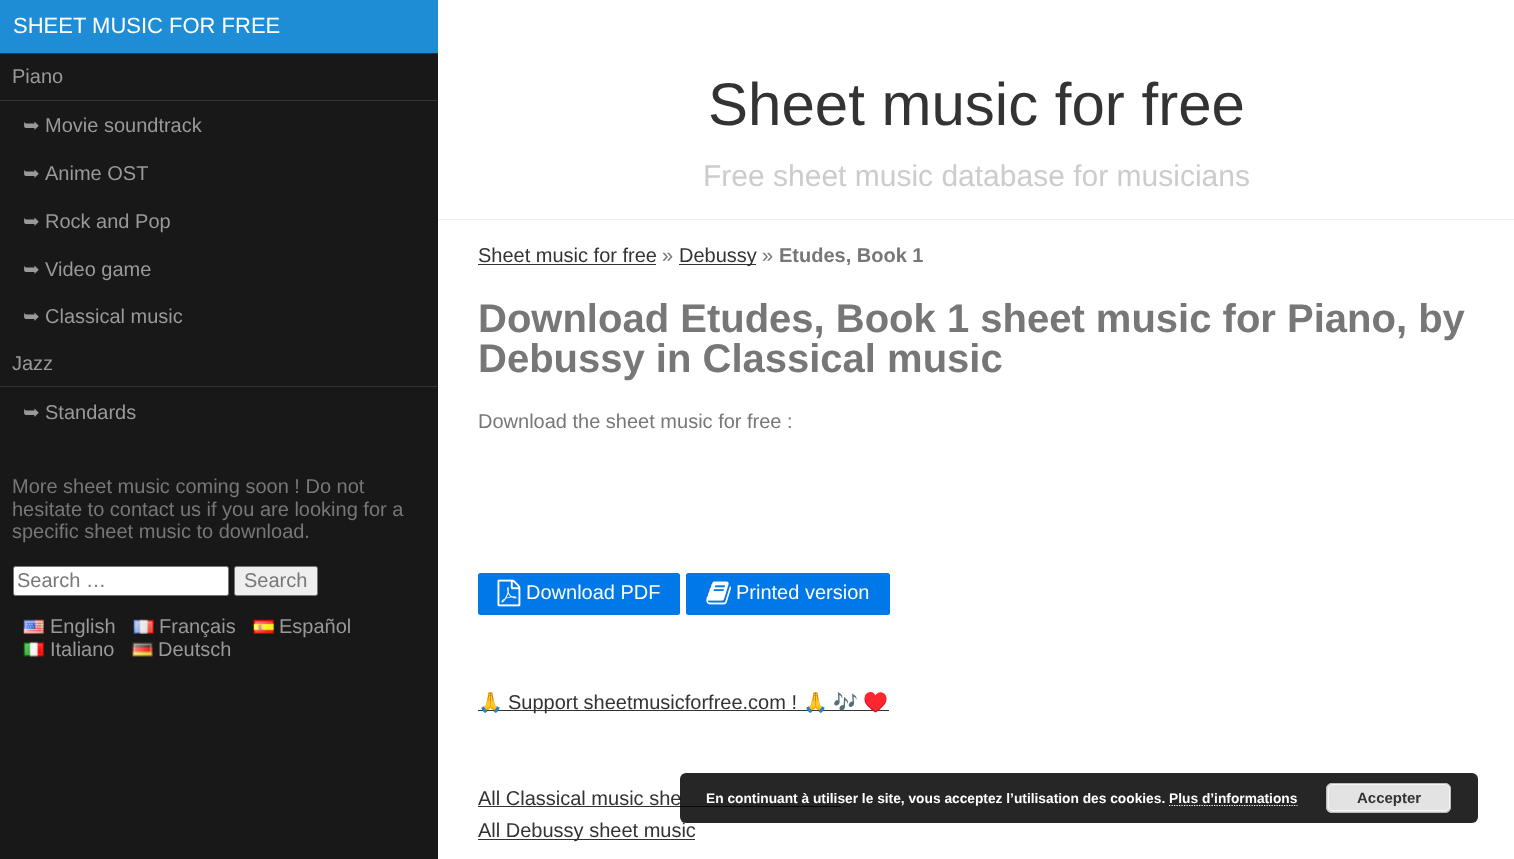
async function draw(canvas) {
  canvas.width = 1514;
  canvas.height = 859;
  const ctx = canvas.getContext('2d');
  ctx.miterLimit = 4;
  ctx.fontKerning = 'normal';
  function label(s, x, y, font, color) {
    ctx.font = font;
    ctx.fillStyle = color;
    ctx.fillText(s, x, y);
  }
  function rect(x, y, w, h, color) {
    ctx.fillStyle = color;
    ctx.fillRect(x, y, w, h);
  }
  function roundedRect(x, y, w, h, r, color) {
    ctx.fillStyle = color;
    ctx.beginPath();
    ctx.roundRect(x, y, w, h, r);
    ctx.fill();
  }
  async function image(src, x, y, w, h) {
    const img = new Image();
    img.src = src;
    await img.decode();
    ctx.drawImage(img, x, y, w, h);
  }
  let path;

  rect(0, 0, 1514, 859, '#fff');
  rect(0, 54, 438, 805, '#191818');
  rect(0, 0, 438, 53, '#1f8dd6');
  label('SHEET MUSIC FOR FREE', 13, 33, '22px Liberation Sans', '#fff');
  rect(0, 53, 438, 1, '#333');
  label('Piano', 12, 83, '20px Liberation Sans', '#999');
  rect(0, 100, 438, 1, '#333');
  label('➥', 23, 132, '20px DejaVu Sans', '#999');
  label('Movie soundtrack', 45, 132, '20px Liberation Sans', '#999');
  label('➥', 23, 180, '20px DejaVu Sans', '#999');
  label('Anime OST', 45, 180, '20px Liberation Sans', '#999');
  label('➥', 23, 228, '20px DejaVu Sans', '#999');
  label('Rock and Pop', 45, 228, '20px Liberation Sans', '#999');
  label('➥', 23, 276, '20px DejaVu Sans', '#999');
  label('Video game', 45, 276, '20px Liberation Sans', '#999');
  label('➥', 23, 323, '20px DejaVu Sans', '#999');
  label('Classical music', 45, 323, '20px Liberation Sans', '#999');
  label('Jazz', 12, 370, '20px Liberation Sans', '#999');
  rect(0, 386, 438, 1, '#333');
  label('➥', 23, 419, '20px DejaVu Sans', '#999');
  label('Standards', 45, 419, '20px Liberation Sans', '#999');
  label('More sheet music coming soon ! Do not', 12, 493, '20px Liberation Sans', '#777');
  label('hesitate to contact us if you are looking for a', 12, 516, '20px Liberation Sans', '#777');
  label('specific sheet music to download.', 12, 538, '20px Liberation Sans', '#777');
  ctx.fillStyle = '#fff';
  ctx.beginPath();
  ctx.roundRect(13.5, 566.5, 215, 29, 2);
  ctx.fill();
  ctx.strokeStyle = '#767676';
  ctx.stroke();
  label('Search …', 17, 587, '20px Liberation Sans', '#777');
  ctx.fillStyle = '#efefef';
  ctx.beginPath();
  ctx.roundRect(234.5, 566.5, 83, 29, 2);
  ctx.fill();
  ctx.stroke();
  label('Search', 244, 587, '20px Liberation Sans', '#777');
  await image('assets/img1.png', 23, 619, 21, 15);
  label('English', 50, 633, '20px Liberation Sans', '#999');
  await image('assets/img2.png', 133, 619, 21, 15);
  label('Français', 159, 633, '20px Liberation Sans', '#999');
  await image('assets/img3.png', 253, 619, 21, 15);
  label('Español', 279, 633, '20px Liberation Sans', '#999');
  await image('assets/img4.png', 23, 641, 21, 16);
  label('Italiano', 50, 656, '20px Liberation Sans', '#999');
  await image('assets/img5.png', 131, 642, 22, 15);
  label('Deutsch', 158, 656, '20px Liberation Sans', '#999');
  rect(438, 219, 1076, 1, '#eee');
  label('Sheet music for free', 708, 125, '60px Liberation Sans', '#333');
  label('Free sheet music database for musicians', 703, 186, '30px Liberation Sans', '#ccc');
  label('Sheet music for free', 478, 262, '20px Liberation Sans', '#333');
  rect(478, 264, 178, 1, '#333');
  label('»', 662, 262, '20px Liberation Sans', '#777');
  rect(679, 264, 77, 1, '#333');
  label('Debussy', 679, 262, '20px Liberation Sans', '#333');
  label('»', 762, 262, '20px Liberation Sans', '#777');
  label('Etudes, Book 1', 779, 262, 'bold 20px Liberation Sans', '#777');
  label('Download Etudes, Book 1 sheet music for Piano, by', 478, 332, 'bold 40px Liberation Sans', '#777');
  label('Debussy in Classical music', 478, 372, 'bold 40px Liberation Sans', '#777');
  label('Download the sheet music for free :', 478, 428, '20px Liberation Sans', '#777');
  roundedRect(478, 573, 202, 42, 2.5, '#0078e7');
  await image('assets/img6.png', 497, 579, 24, 28);
  label('Download PDF', 526, 599, '20px Liberation Sans', '#fff');
  roundedRect(686, 573, 204, 42, 2.5, '#0078e7');
  await image('assets/img7.png', 706, 581, 25, 24);
  label('Printed version', 736, 599, '20px Liberation Sans', '#fff');
  rect(478, 710, 411, 1, '#333');
  label('🙏', 478, 709, '20px Noto Color Emoji', '#333');
  label('Support sheetmusicforfree.com !', 508, 709, '20px Liberation Sans', '#333');
  label('🙏', 803, 709, '20px Noto Color Emoji', '#333');
  label('🎶', 833, 709, '20px Noto Color Emoji', '#333');
  label('♥️', 863, 709, '20px Noto Color Emoji', '#333');
  label('All Classical music she', 478, 805, '20px Liberation Sans', '#333');
  rect(478, 806, 363, 1, '#333');
  rect(478, 839, 217, 1, '#333');
  label('All Debussy sheet music', 478, 837, '20px Liberation Sans', '#333');
  roundedRect(680, 773, 798, 50, 6, '#000000d9');
  label('En continuant à utiliser le site, vous acceptez l’utilisation des cookies. Plus d’informations', 706, 803, 'bold 13.75px Liberation Sans', '#fff');
  roundedRect(1326, 783, 125, 30, 6, '#e3e3e3');
  ctx.beginPath();
  ctx.roundRect(1328.5, 784.5, 121, 26, 4.5);
  ctx.strokeStyle = '#f6f6f6';
  ctx.stroke();
  ctx.beginPath();
  ctx.roundRect(1326.5, 783.5, 124, 29, 5.5);
  ctx.strokeStyle = '#bbb';
  ctx.stroke();
  label('Accepter', 1357, 803, 'bold 15px Liberation Sans', '#333');
  path = new Path2D('M1169 805.5H1297.5');
  ctx.strokeStyle = '#fff';
  ctx.lineWidth = 1.2;
  ctx.setLineDash([1.25, 1.25]);
  ctx.stroke(path);
}

draw(document.querySelector('canvas'));
